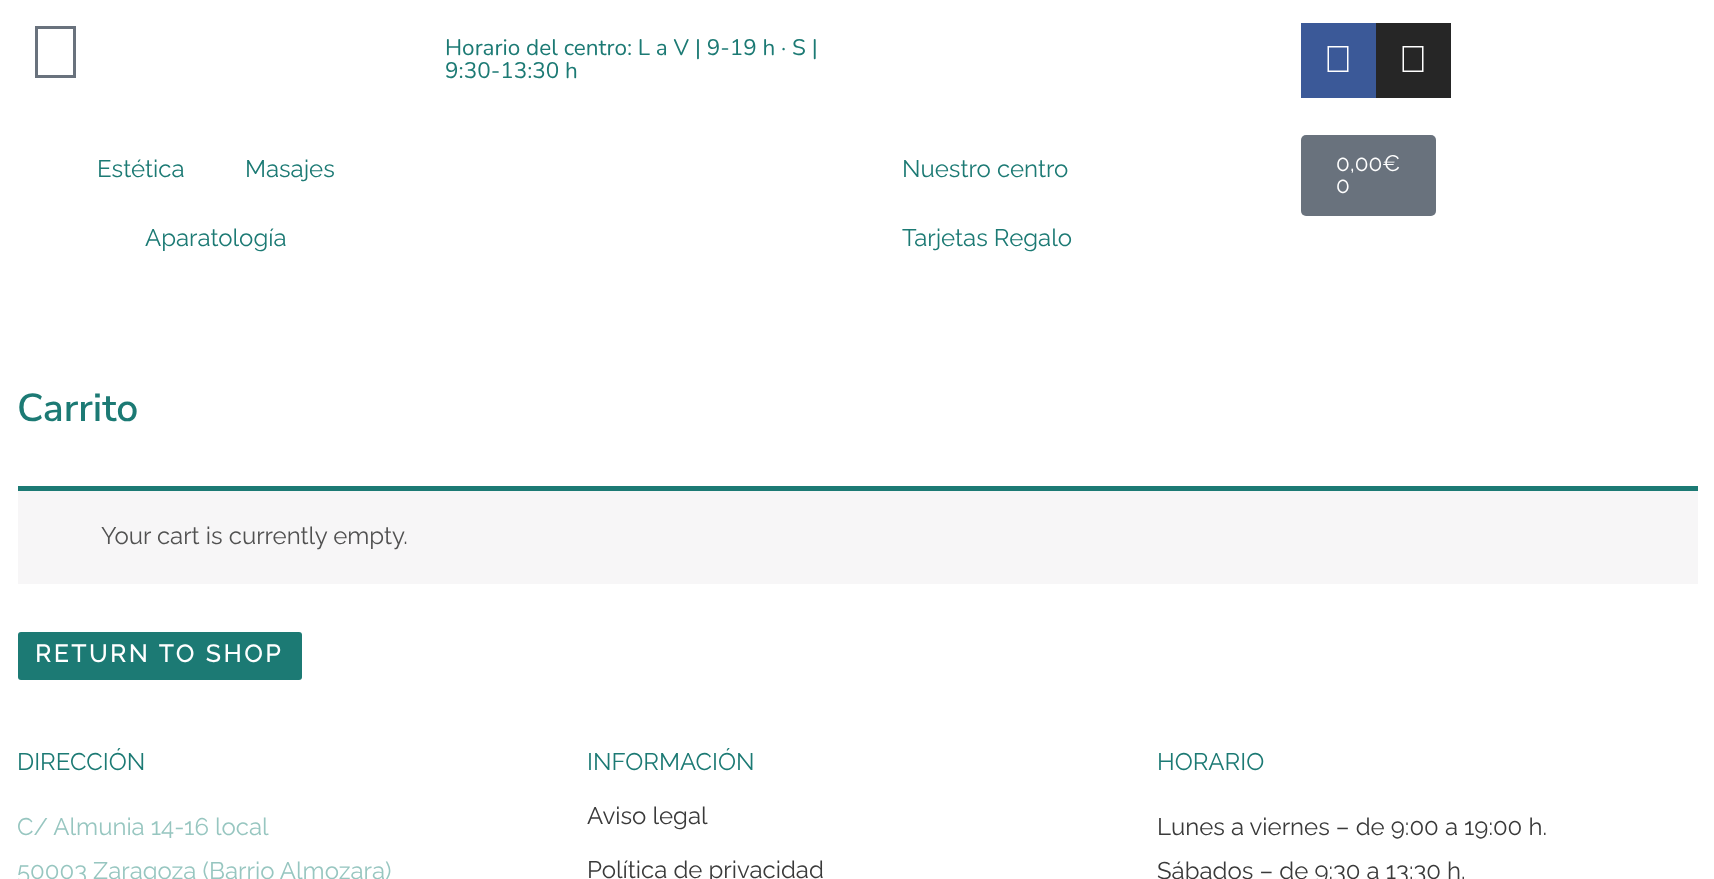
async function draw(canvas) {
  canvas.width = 1714;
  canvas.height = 879;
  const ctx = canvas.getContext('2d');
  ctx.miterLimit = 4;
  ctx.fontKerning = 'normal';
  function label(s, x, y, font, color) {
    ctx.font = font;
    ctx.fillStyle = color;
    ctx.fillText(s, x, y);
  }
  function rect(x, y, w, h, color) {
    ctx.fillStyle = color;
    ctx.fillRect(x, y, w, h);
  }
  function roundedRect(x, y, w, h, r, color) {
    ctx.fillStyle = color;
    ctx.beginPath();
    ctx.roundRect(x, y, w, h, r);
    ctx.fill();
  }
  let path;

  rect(0, 0, 1714, 879, '#fff');
  ctx.fillStyle = '#69727d';
  path = new Path2D('M35 26H76V78H35ZM38 29V75H73V29Z');
  ctx.fill(path);
  label('Horario del centro: L a V | 9-19 h · S |', 445, 55, '200 22.5px Nunito', '#1c7a74');
  label('9:30-13:30 h', 445, 78, '200 22.5px Nunito', '#1c7a74');
  rect(1301, 23, 75, 75, '#3b5998');
  ctx.fillStyle = '#fff';
  path = new Path2D('M1327.5 46H1348.5V72H1327.5ZM1329 47.5V70.5H1347V47.5Z');
  ctx.fill(path);
  rect(1376, 23, 75, 75, '#262626');
  ctx.fillStyle = '#fff';
  path = new Path2D('M1402.5 46H1423.5V72H1402.5ZM1404 47.5V70.5H1422V47.5Z');
  ctx.fill(path);
  label('Estética', 97, 177, '100 24px Raleway', '#1c7a74');
  label('Masajes', 245, 177, '100 24px Raleway', '#1c7a74');
  label('Aparatología', 145, 246, '100 24px Raleway', '#1c7a74');
  label('Nuestro centro', 902, 177, '100 24px Raleway', '#1c7a74');
  label('Tarjetas Regalo', 902, 246, '100 24px Raleway', '#1c7a74');
  roundedRect(1301, 135, 135, 81, 5, '#69727d');
  label('0,00€', 1336, 171, '100 22.5px Raleway', '#fff');
  label('0', 1336, 193, '100 22.5px Raleway', '#fff');
  label('Carrito', 17, 421, '200 39px Nunito Sans', '#1c7a74');
  rect(18, 491, 1680, 93, '#f7f6f7');
  rect(18, 486, 1680, 5, '#1c7a74');
  label('Your cart is currently empty.', 101, 544, '100 24px Raleway', '#515151');
  roundedRect(18, 632, 284, 48, 3, '#1c7a74');
  ctx.letterSpacing = '3px';
  label('RETURN TO SHOP', 35, 662, 'bold 24px Raleway', '#fff');
  ctx.letterSpacing = '0px';
  label('DIRECCIÓN', 17, 770, '100 24px Raleway', '#1c7a74');
  label('C/ Almunia 14-16 local', 17, 835, '100 24px Raleway', '#97c6c0');
  label('50003 Zaragoza (Barrio Almozara)', 17, 879, '100 24px Raleway', '#97c6c0');
  label('INFORMACIÓN', 587, 770, '100 24px Raleway', '#1c7a74');
  label('Aviso legal', 587, 824, '100 24px Raleway', '#3a3a3a');
  label('Política de privacidad', 587, 878, '100 24px Raleway', '#3a3a3a');
  label('HORARIO', 1157, 770, '100 24px Raleway', '#1c7a74');
  label('Lunes a viernes – de 9:00 a 19:00 h.', 1157, 835, '100 24px Raleway', '#3a3a3a');
  label('Sábados – de 9:30 a 13:30 h.', 1157, 879, '100 24px Raleway', '#3a3a3a');
}

draw(document.querySelector('canvas'));
